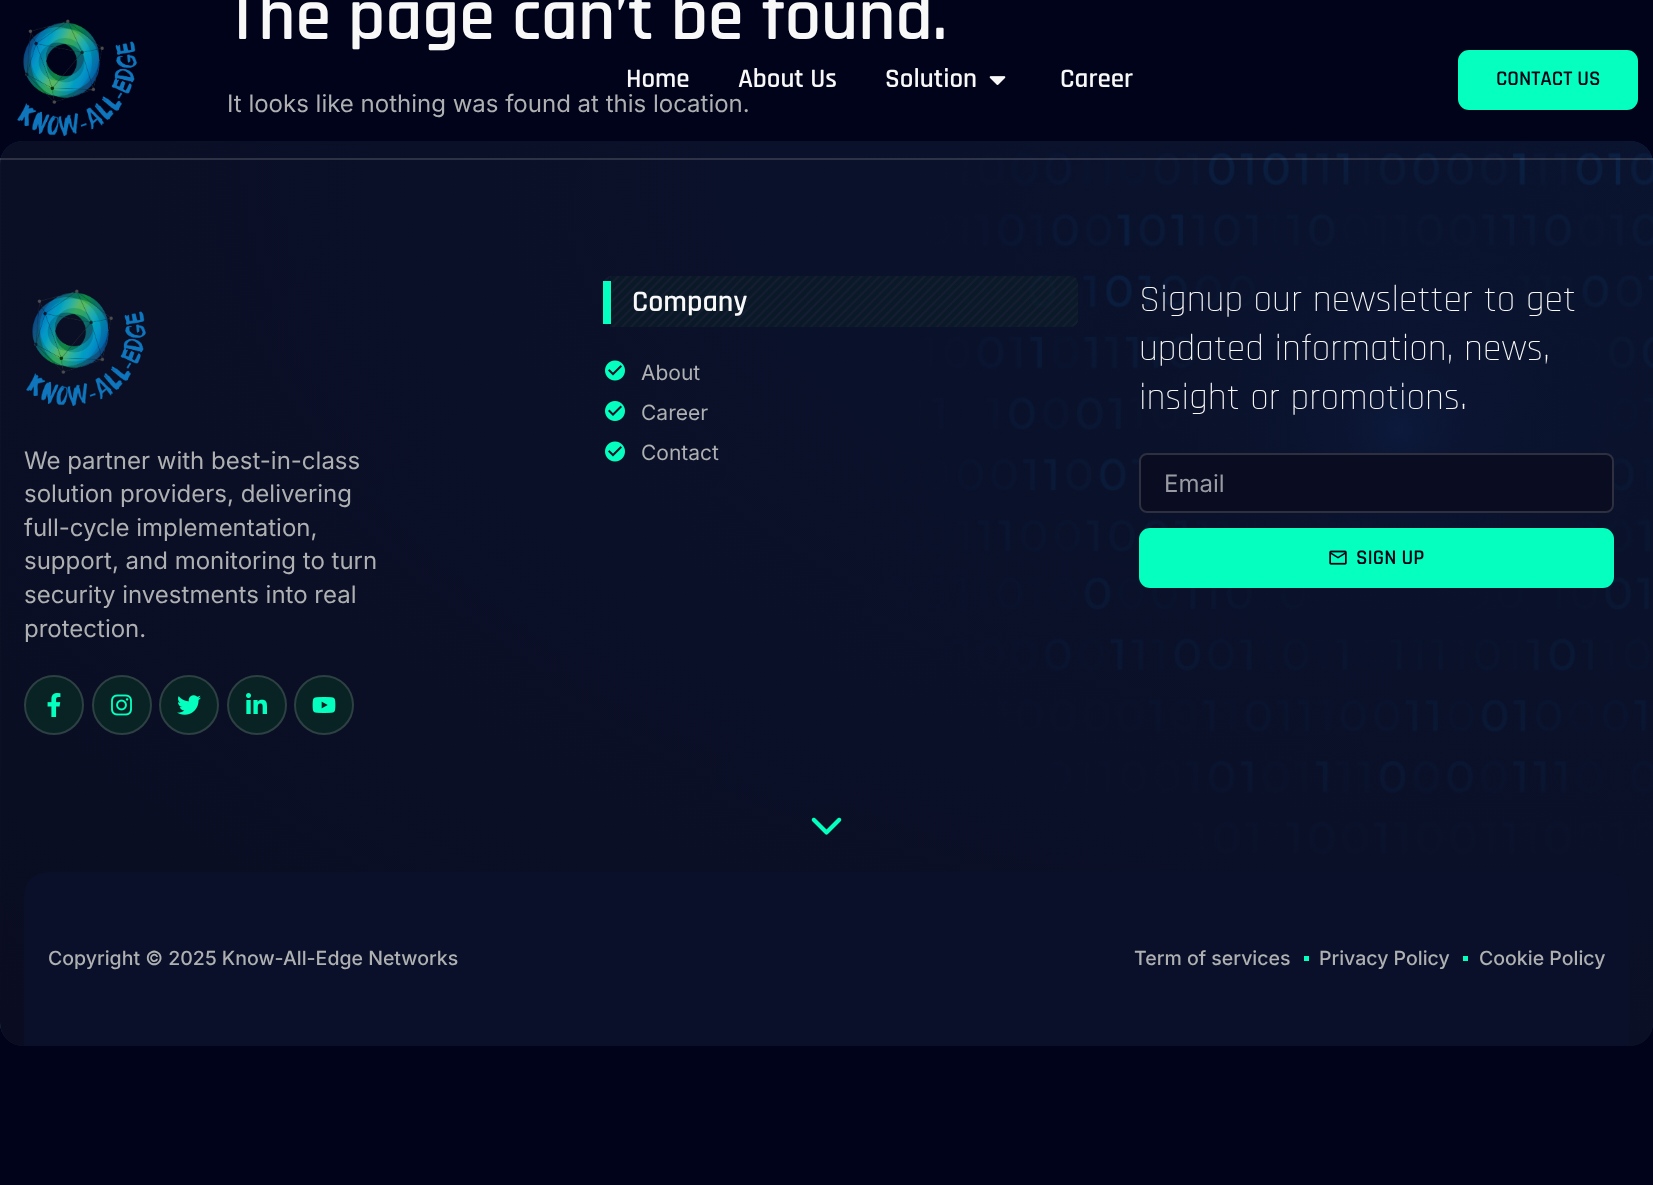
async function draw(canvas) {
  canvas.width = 1653;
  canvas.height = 1185;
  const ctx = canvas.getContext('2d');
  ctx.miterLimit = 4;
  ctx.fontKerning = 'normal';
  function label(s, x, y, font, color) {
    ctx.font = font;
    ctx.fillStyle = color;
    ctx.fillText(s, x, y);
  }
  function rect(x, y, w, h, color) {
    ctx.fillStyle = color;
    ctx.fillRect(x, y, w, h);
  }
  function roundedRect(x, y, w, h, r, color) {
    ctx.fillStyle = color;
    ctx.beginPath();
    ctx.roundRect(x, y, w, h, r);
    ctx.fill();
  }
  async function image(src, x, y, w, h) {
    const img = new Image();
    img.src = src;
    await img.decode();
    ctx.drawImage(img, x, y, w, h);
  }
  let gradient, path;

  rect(0, 0, 1653, 1185, '#000319');
  label('The page can’t be found.', 227, 39, '600 72px Rajdhani', '#f8f8f8');
  label('It looks like nothing was found at this location.', 227, 112, '24px Inter', '#aeb0b2');
  roundedRect(0, 141, 1653, 905, 23, '#0a1029');
  await image('assets/img3.png', 0, 141, 1653, 905);
  gradient = ctx.createRadialGradient(1653, 257.75, 0, 1653, 257.75, 2338);
  gradient.addColorStop(0, '#0a1029cc');
  gradient.addColorStop(1, '#0a0d21');
  ctx.fillStyle = gradient;
  ctx.beginPath();
  ctx.roundRect(0, 141, 1653, 905, 23);
  ctx.save();
  ctx.clip();
  ctx.scale(1, 1279 / 2338);
  ctx.fillRect(0, 0, 1653, 2167);
  ctx.restore();
  rect(0, 158, 1653, 2, '#bfbfbf33');
  await image('assets/img1.png', 17, 19, 121, 118);
  label('Home', 626, 87, '600 27px Rajdhani', '#f8f8f8');
  label('About Us', 738, 87, '600 27px Rajdhani', '#f8f8f8');
  label('Solution', 885, 87, '600 27px Rajdhani', '#f8f8f8');
  await image('assets/img2.png', 989, 76, 17, 9);
  label('Career', 1060, 87, '600 27px Rajdhani', '#f8f8f8');
  ctx.fillStyle = '#04ffbf';
  ctx.beginPath();
  ctx.roundRect(1459, 51, 178, 58, 10);
  ctx.fill();
  ctx.strokeStyle = '#04ffbf';
  ctx.lineWidth = 2;
  ctx.stroke();
  label('CONTACT US', 1496, 85, '600 21px Rajdhani', '#000319');
  ctx.fillStyle = '#09222480';
  path = new Path2D('M610 276H1071C1075 276 1078 279 1078 284V320C1078 324 1075 327 1071 327H610Z');
  ctx.fill(path);
  await image('assets/img4.png', 603, 276, 475, 51);
  rect(603, 281, 8, 43, '#04ffbf');
  label('Company', 632, 311, '600 30px Rajdhani', '#f8f8f8');
  await image('assets/img5.png', 605, 360, 20, 21);
  label('About', 641, 380, '21px Inter', '#aeb0b2');
  await image('assets/img6.png', 605, 401, 20, 20);
  label('Career', 641, 420, '21px Inter', '#aeb0b2');
  await image('assets/img7.png', 605, 441, 20, 21);
  label('Contact', 641, 460, '21px Inter', '#aeb0b2');
  label('Signup our newsletter to get', 1139, 311, '300 37.5px Rajdhani', '#f8f8f8');
  label('updated information, news,', 1139, 360, '300 37.5px Rajdhani', '#f8f8f8');
  label('insight or promotions.', 1139, 409, '300 37.5px Rajdhani', '#f8f8f8');
  roundedRect(1139, 453, 475, 60, 8, '#0a0d21');
  ctx.beginPath();
  ctx.roundRect(1140, 454, 473, 58, 7);
  ctx.strokeStyle = '#bfbfbf33';
  ctx.stroke();
  label('Email', 1164, 492, '24px Inter', '#999aa2');
  ctx.fillStyle = '#04ffbf';
  ctx.beginPath();
  ctx.roundRect(1140, 529, 473, 58, 10);
  ctx.fill();
  ctx.strokeStyle = '#04ffbf';
  ctx.stroke();
  await image('assets/img8.png', 1329, 550, 18, 15);
  label('SIGN UP', 1356, 564, '600 21px Rajdhani', '#000319');
  await image('assets/img9.png', 26, 289, 121, 117);
  label('We partner with best-in-class', 24, 469, '24px Inter', '#aeb0b2');
  label('solution providers, delivering', 24, 502, '24px Inter', '#aeb0b2');
  label('full-cycle implementation,', 24, 536, '24px Inter', '#aeb0b2');
  label('support, and monitoring to turn', 24, 569, '24px Inter', '#aeb0b2');
  label('security investments into real', 24, 603, '24px Inter', '#aeb0b2');
  label('protection.', 24, 637, '24px Inter', '#aeb0b2');
  ctx.fillStyle = '#092224';
  ctx.beginPath();
  ctx.arc(54, 705, 30, 0, 2 * Math.PI);
  ctx.fill();
  ctx.beginPath();
  ctx.arc(54, 705, 29, 0, 2 * Math.PI);
  ctx.strokeStyle = '#bfbfbf33';
  ctx.stroke();
  await image('assets/img10.png', 47, 693, 14, 24);
  ctx.beginPath();
  ctx.arc(122, 705, 30, 0, 2 * Math.PI);
  ctx.fill();
  ctx.beginPath();
  ctx.arc(122, 705, 29, 0, 2 * Math.PI);
  ctx.stroke();
  await image('assets/img11.png', 111, 694, 21, 22);
  ctx.beginPath();
  ctx.arc(189, 705, 30, 0, 2 * Math.PI);
  ctx.fill();
  ctx.beginPath();
  ctx.arc(189, 705, 29, 0, 2 * Math.PI);
  ctx.stroke();
  await image('assets/img12.png', 177, 695, 24, 20);
  ctx.beginPath();
  ctx.arc(257, 705, 30, 0, 2 * Math.PI);
  ctx.fill();
  ctx.beginPath();
  ctx.arc(257, 705, 29, 0, 2 * Math.PI);
  ctx.stroke();
  await image('assets/img13.png', 246, 693, 21, 21);
  ctx.beginPath();
  ctx.arc(324, 705, 30, 0, 2 * Math.PI);
  ctx.fill();
  ctx.beginPath();
  ctx.arc(324, 705, 29, 0, 2 * Math.PI);
  ctx.stroke();
  await image('assets/img14.png', 312, 697, 24, 16);
  await image('assets/img15.png', 811, 817, 31, 18);
  ctx.fillStyle = '#0a1029';
  ctx.beginPath();
  ctx.roundRect(24, 872, 1605, 174, [23, 23, 0, 0]);
  ctx.fill();
  label('Copyright © 2025 Know-All-Edge Networks', 48, 965, '500 19.5px Inter', '#aeb0b2');
  label('Term of services', 1134, 965, '500 19.5px Inter', '#aeb0b2');
  rect(1304, 956, 5, 5, '#04ffbf');
  label('Privacy Policy', 1319, 965, '500 19.5px Inter', '#aeb0b2');
  rect(1463, 956, 5, 5, '#04ffbf');
  label('Cookie Policy', 1479, 965, '500 19.5px Inter', '#aeb0b2');
}

draw(document.querySelector('canvas'));
